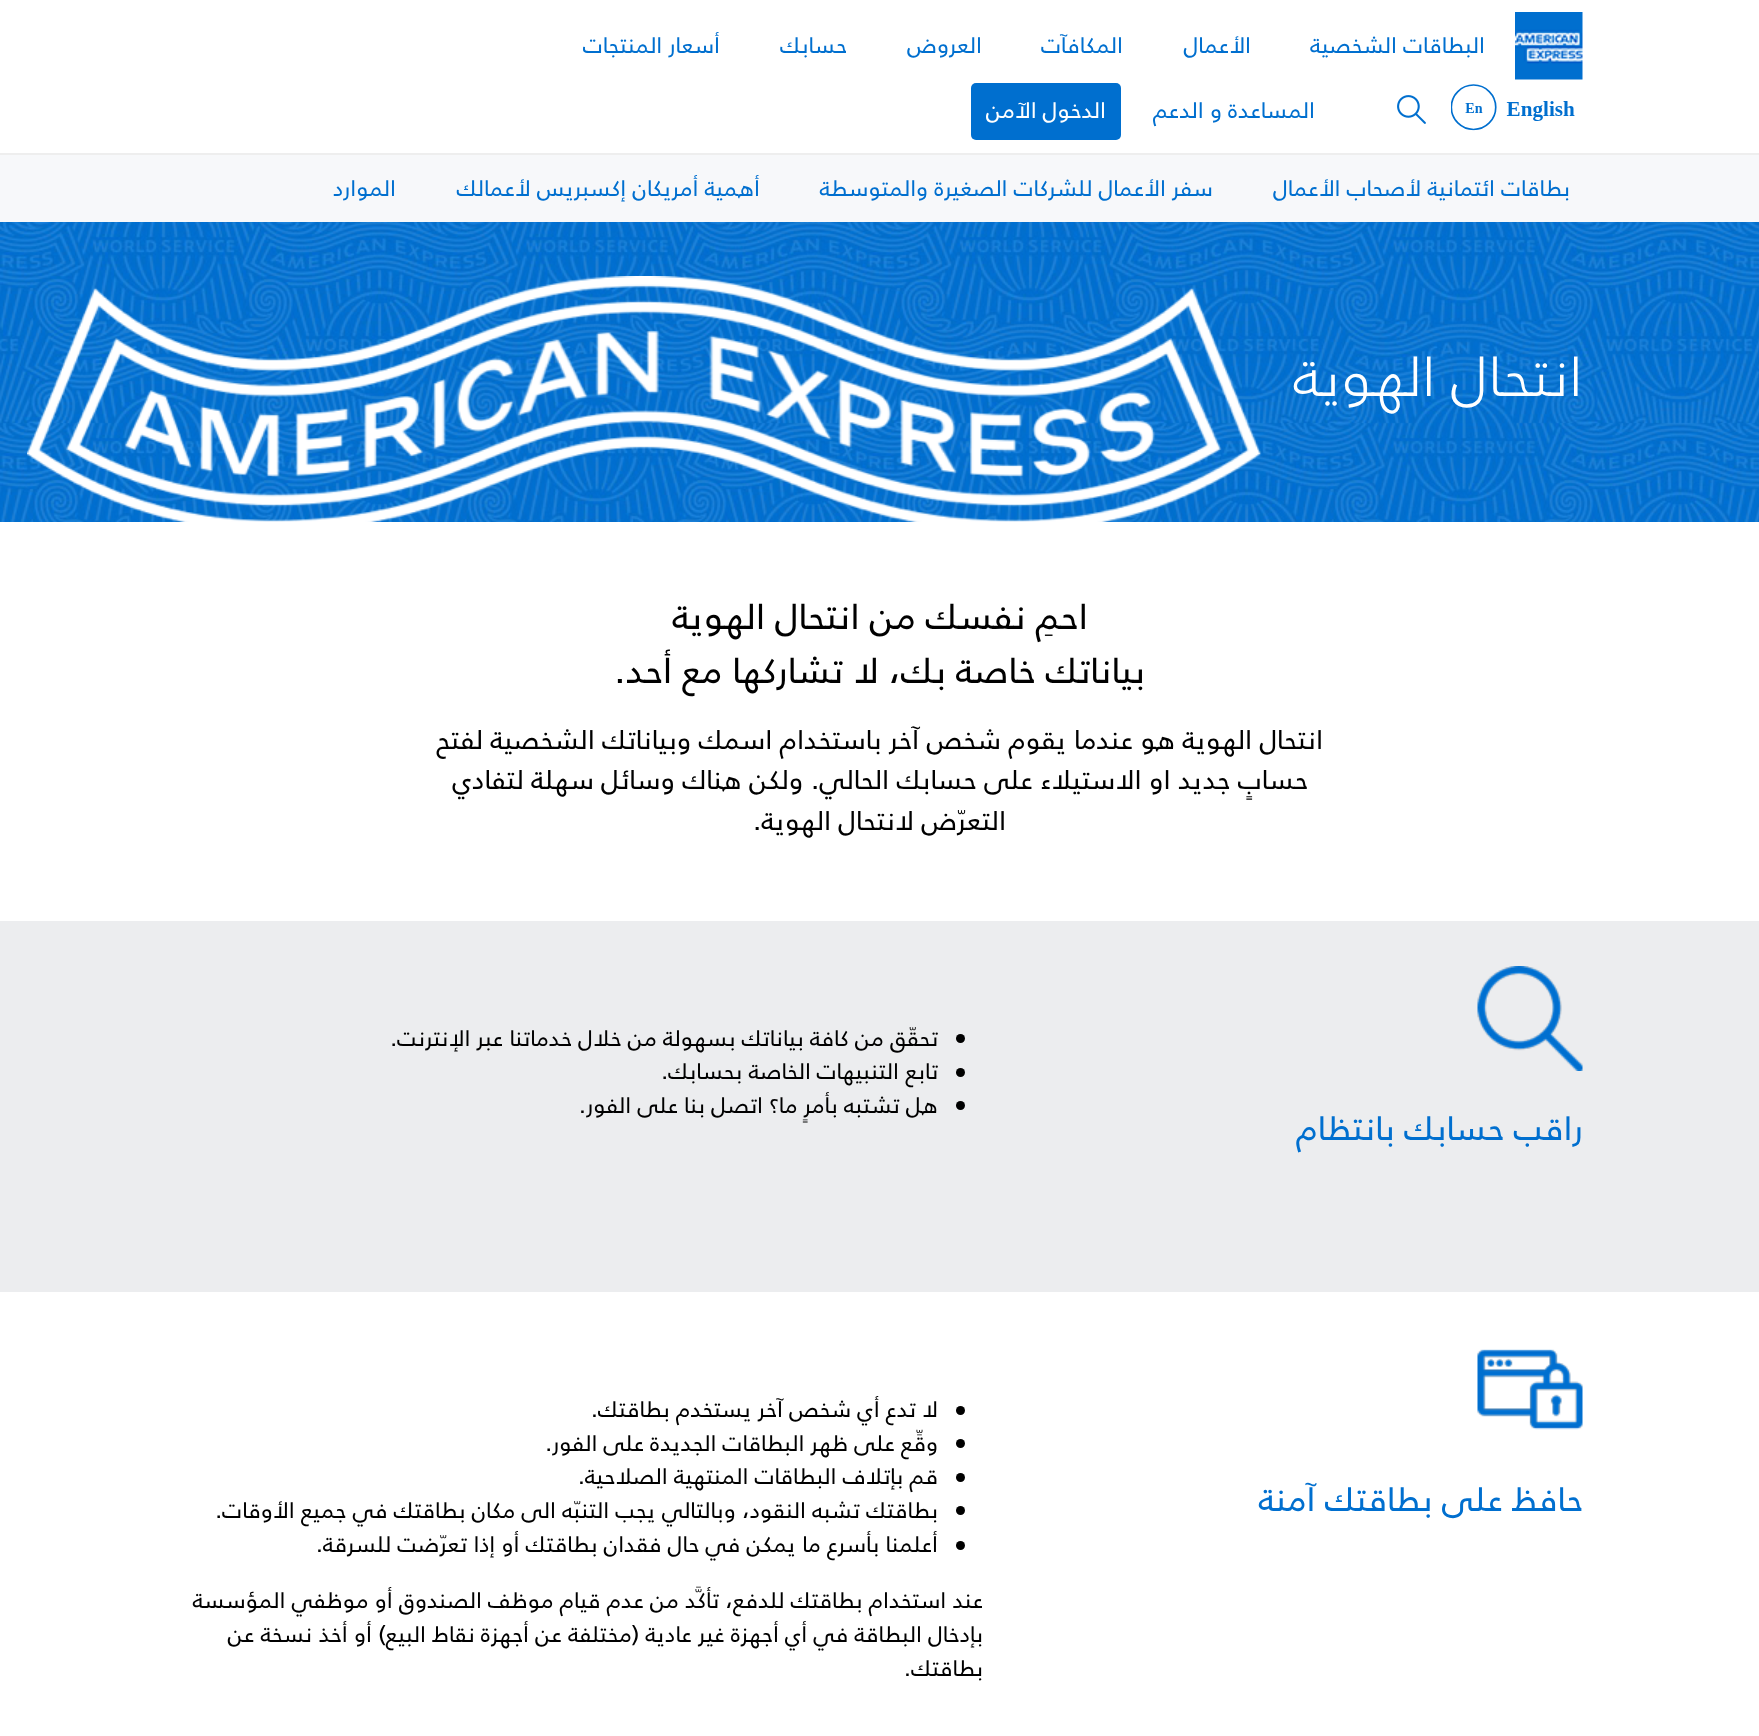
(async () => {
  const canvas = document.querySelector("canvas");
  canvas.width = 1759;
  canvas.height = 1736;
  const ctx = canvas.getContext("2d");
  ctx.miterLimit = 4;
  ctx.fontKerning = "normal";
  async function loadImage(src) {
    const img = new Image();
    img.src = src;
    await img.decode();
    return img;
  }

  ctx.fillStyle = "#ffffff";
  ctx.fillRect(0, 0, 1759, 1736);
  ctx.drawImage(await loadImage("img/1.png"), 1515, 12, 68, 68);
  ctx.drawImage(await loadImage("img/2.png"), 1451, 84, 124, 47);
  ctx.drawImage(await loadImage("img/3.png"), 1397, 95, 29, 29);
  ctx.fillStyle = "#006fcf";
  ctx.beginPath();
  ctx.roundRect(971, 83, 150, 57, 5);
  ctx.fill();
  ctx.fillStyle = "#f7f8fa";
  ctx.fillRect(0, 155, 1759, 67);
  ctx.fillStyle = "#eeeeee";
  ctx.fillRect(0, 153, 1759, 2);
  ctx.drawImage(await loadImage("img/4.png"), 0, 222, 1759, 300);
  ctx.drawImage(await loadImage("img/5.png"), 27, 276, 1235, 246);
  ctx.fillStyle = "#ecedef";
  ctx.fillRect(0, 921, 1759, 371);
  ctx.fillStyle = "#000000";
  ctx.beginPath();
  ctx.arc(960.5, 1038.5, 4.5, 0, Math.PI * 2);
  ctx.fill();
  ctx.beginPath();
  ctx.arc(960.5, 1072.5, 4.5, 0, Math.PI * 2);
  ctx.fill();
  ctx.beginPath();
  ctx.arc(960.5, 1105.5, 4.5, 0, Math.PI * 2);
  ctx.fill();
  ctx.drawImage(await loadImage("img/6.png"), 1477, 966, 106, 105);
  ctx.drawImage(await loadImage("img/7.png"), 1477, 1349, 106, 81);
  ctx.beginPath();
  ctx.arc(960.5, 1410.5, 4.5, 0, Math.PI * 2);
  ctx.fill();
  ctx.beginPath();
  ctx.arc(960.5, 1443.5, 4.5, 0, Math.PI * 2);
  ctx.fill();
  ctx.beginPath();
  ctx.arc(960.5, 1477.5, 4.5, 0, Math.PI * 2);
  ctx.fill();
  ctx.beginPath();
  ctx.arc(960.5, 1510.5, 4.5, 0, Math.PI * 2);
  ctx.fill();
  ctx.beginPath();
  ctx.arc(960.5, 1545.5, 4.5, 0, Math.PI * 2);
  ctx.fill();
  ctx.direction = "rtl";
  ctx.font = "22.5px Frutiger";
  ctx.fillStyle = "#006fcf";
  for (const [text, x, y] of [
    ["البطاقات الشخصية", 1485, 53],
    ["الأعمال", 1251, 53],
    ["المكافآت", 1123, 53],
    ["العروض", 982, 53],
    ["حسابك", 847, 53],
    ["أسعار المنتجات", 720, 53],
    ["المساعدة و الدعم", 1315, 118],
  ]) {
    ctx.fillText(text, x, y);
  }
  ctx.fillStyle = "#ffffff";
  ctx.fillText("الدخول الآمن", 1106, 118);
  ctx.fillStyle = "#006fcf";
  for (const [text, x, y] of [
    ["بطاقات ائتمانية لأصحاب الأعمال", 1570, 196],
    ["سفر الأعمال للشركات الصغيرة والمتوسطة", 1213, 196],
    ["أهمية أمريكان إكسبريس لأعمالك", 760, 196],
    ["الموارد", 396, 196],
  ]) {
    ctx.fillText(text, x, y);
  }
  ctx.font = "300 56.25px Frutiger";
  ctx.fillStyle = "#ffffff";
  ctx.fillText("انتحال الهوية", 1583, 396);
  ctx.font = "36px Frutiger";
  ctx.fillStyle = "#000000";
  ctx.fillText("احمِ نفسك من انتحال الهوية", 1088, 629);
  ctx.fillText("بياناتك خاصة بك، لا تشاركها مع أحد.", 1145, 683);
  ctx.font = "27px Frutiger";
  for (const [text, x, y] of [
    ["انتحال الهوية هو عندما يقوم شخص آخر باستخدام اسمك وبياناتك الشخصية لفتح", 1323, 749],
    ["حسابٍ جديد او الاستيلاء على حسابك الحالي. ولكن هناك وسائل سهلة لتفادي", 1308, 789],
    ["التعرّض لانتحال الهوية.", 1006, 830],
  ]) {
    ctx.fillText(text, x, y);
  }
  ctx.font = "22.5px Frutiger";
  ctx.fillText("تحقّق من كافة بياناتك بسهولة من خلال", 938, 1046);
  ctx.fillText("خدماتنا عبر الإنترنت", 572, 1046);
  ctx.direction = "ltr";
  ctx.fillText(".", 390, 1046);
  ctx.direction = "rtl";
  for (const [text, x, y] of [
    ["تابع", 938, 1079],
    ["التنبيهات", 899, 1079],
    ["الخاصة بحسابك.", 811, 1079],
    ["هل تشتبه بأمرٍ ما؟", 938, 1113],
    ["اتصل بنا", 763, 1113],
    ["على الفور.", 678, 1113],
  ]) {
    ctx.fillText(text, x, y);
  }
  ctx.font = "33.75px Frutiger";
  ctx.fillStyle = "#006fcf";
  ctx.fillText("راقب حسابك بانتظام", 1583, 1140);
  ctx.fillText("حافظ على بطاقتك آمنة", 1583, 1511);
  ctx.font = "22.5px Frutiger";
  ctx.fillStyle = "#000000";
  for (const [text, x, y] of [
    ["لا تدع أي شخص آخر يستخدم بطاقتك.", 938, 1417],
    ["وقِّع على ظهر البطاقات الجديدة على الفور.", 938, 1451],
    ["قم بإتلاف البطاقات المنتهية الصلاحية.", 938, 1484],
    ["بطاقتك تشبه النقود، وبالتالي يجب التنبّه الى مكان بطاقتك في جميع الأوقات.", 938, 1518],
    ["أعلمنا بأسرع ما يمكن في حال فقدان بطاقتك أو إذا تعرّضت للسرقة.", 938, 1552],
    ["عند استخدام بطاقتك للدفع، تأكَّد من عدم قيام موظف الصندوق أو موظفي المؤسسة", 983, 1608],
    ["بإدخال البطاقة في أي أجهزة غير عادية (مختلفة عن أجهزة نقاط البيع) أو أخذ نسخة عن", 983, 1642],
    ["بطاقتك.", 983, 1676],
  ]) {
    ctx.fillText(text, x, y);
  }
})();
